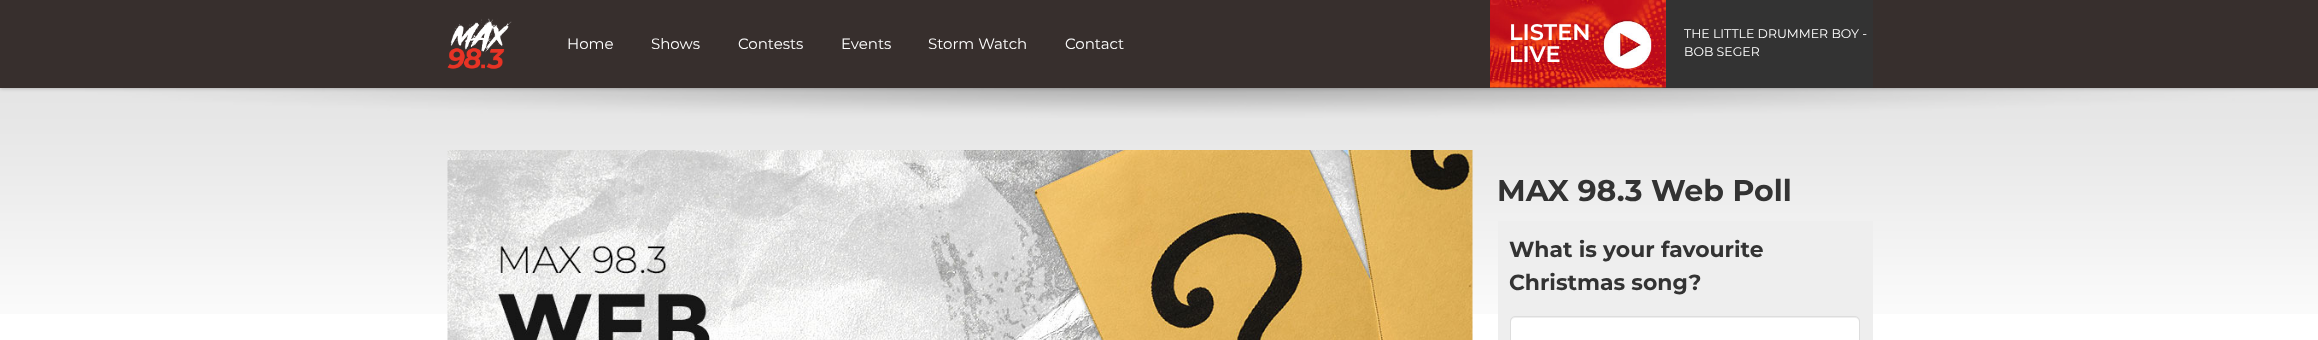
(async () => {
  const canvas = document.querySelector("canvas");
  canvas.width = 2318;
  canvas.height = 340;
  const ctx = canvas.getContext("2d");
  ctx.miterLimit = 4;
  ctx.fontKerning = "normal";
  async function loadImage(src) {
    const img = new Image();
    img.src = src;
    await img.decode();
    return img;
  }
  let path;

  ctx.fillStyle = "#ffffff";
  ctx.fillRect(0, 0, 2318, 340);
  ctx.drawImage(await loadImage("img/3.png"), 0, 88, 2318, 226);
  ctx.fillStyle = "rgba(0, 0, 0, 0.3)";
  ctx.filter = "blur(2px)";
  ctx.beginPath();
  ctx.rect(0, 0, 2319, 88);
  ctx.fill();
  ctx.filter = "none";
  ctx.fillStyle = "#372f2d";
  ctx.fillRect(0, 0, 2318, 88);
  ctx.drawImage(await loadImage("img/1.png"), 447, 18, 65, 51);
  ctx.fillStyle = "#333333";
  ctx.fillRect(1490, 0, 383, 88);
  ctx.drawImage(await loadImage("img/2.png"), 1490, 0, 176, 88);
  ctx.drawImage(await loadImage("img/4.png"), 447, 150, 1026, 190);
  ctx.fillStyle = "#eeeeee";
  ctx.fillRect(1498, 221, 375, 119);
  ctx.beginPath();
  ctx.roundRect(1510.5, 316.5, 349, 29, 4.5);
  ctx.strokeStyle = "#dddddd";
  ctx.stroke();
  ctx.fillStyle = "#ffffff";
  path = new Path2D("M1515 318H1855C1857 318 1859 320 1859 322V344H1511V322C1511 320 1513 318 1515 318Z");
  ctx.fill(path);
  ctx.font = "15px Montserrat";
  for (const [text, x, y] of [
    ["Home", 567, 49],
    ["Shows", 651, 49],
    ["Contests", 738, 49],
    ["Events", 841, 49],
    ["Storm Watch", 928, 49],
    ["Contact", 1065, 49],
  ]) {
    ctx.fillText(text, x, y);
  }
  ctx.font = "600 22.5px Montserrat";
  ctx.fillText("LISTEN", 1509, 40);
  ctx.fillText("LIVE", 1509, 62);
  ctx.font = "12.5px Montserrat";
  ctx.fillText("THE LITTLE DRUMMER BOY -", 1684, 38);
  ctx.fillText("BOB SEGER", 1684, 56);
  ctx.font = "bold 30px Montserrat";
  ctx.fillStyle = "#333333";
  ctx.fillText("MAX 98.3 Web Poll", 1497, 201);
  ctx.font = "bold 21.9px Montserrat";
  ctx.fillText("What is your favourite", 1509, 257);
  ctx.fillText("Christmas song?", 1509, 290);
})();
